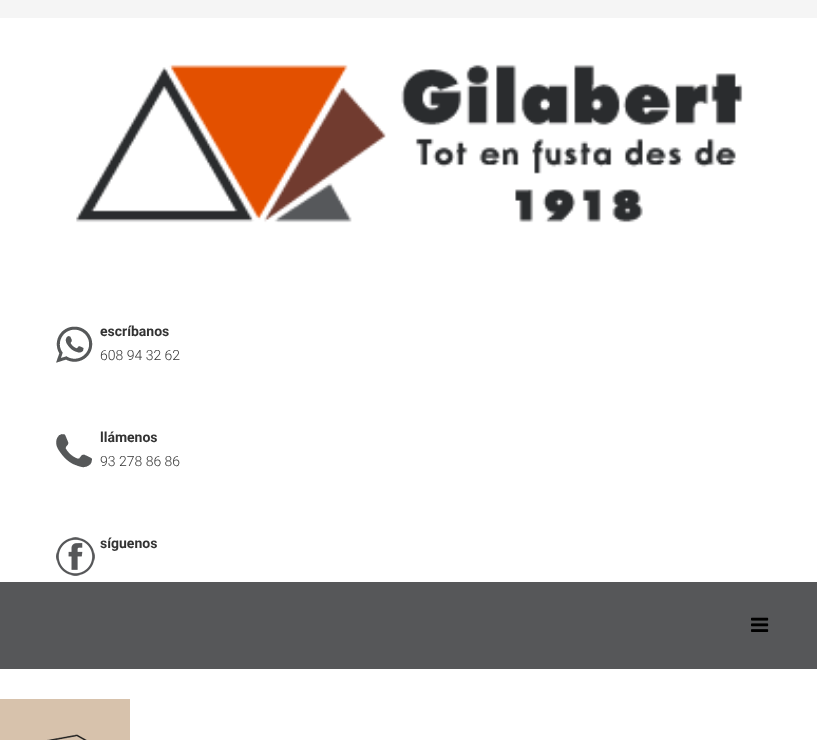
(async () => {
  const canvas = document.querySelector("canvas");
  canvas.width = 817;
  canvas.height = 740;
  const ctx = canvas.getContext("2d");
  ctx.miterLimit = 4;
  ctx.fontKerning = "normal";
  async function loadImage(src) {
    const img = new Image();
    img.src = src;
    await img.decode();
    return img;
  }

  ctx.fillStyle = "#ffffff";
  ctx.fillRect(0, 0, 817, 740);
  ctx.fillStyle = "#f5f5f5";
  ctx.fillRect(0, 0, 817, 18);
  ctx.drawImage(await loadImage("img/1.png"), 76, 64, 667, 159);
  ctx.drawImage(await loadImage("img/2.png"), 56, 326, 37, 37);
  ctx.drawImage(await loadImage("img/3.png"), 56, 434, 36, 34);
  ctx.drawImage(await loadImage("img/4.png"), 56, 537, 39, 39);
  ctx.fillStyle = "#565759";
  ctx.fillRect(0, 582, 817, 87);
  ctx.drawImage(await loadImage("img/5.png"), 751, 617, 18, 15);
  ctx.fillStyle = "#d7c2ac";
  ctx.fillRect(0, 699, 130, 41);
  ctx.drawImage(await loadImage("img/6.png"), 47, 734, 40, 6);
  ctx.font = "bold 14px Roboto";
  ctx.fillStyle = "#333333";
  ctx.fillText("escríbanos", 100, 336);
  ctx.font = "300 14px Roboto";
  ctx.fillText("608 94 32 62", 100, 360);
  ctx.font = "bold 14px Roboto";
  ctx.fillText("llámenos", 100, 442);
  ctx.font = "300 14px Roboto";
  ctx.fillText("93 278 86 86", 100, 466);
  ctx.font = "bold 14px Roboto";
  ctx.fillText("síguenos", 100, 548);
})();
